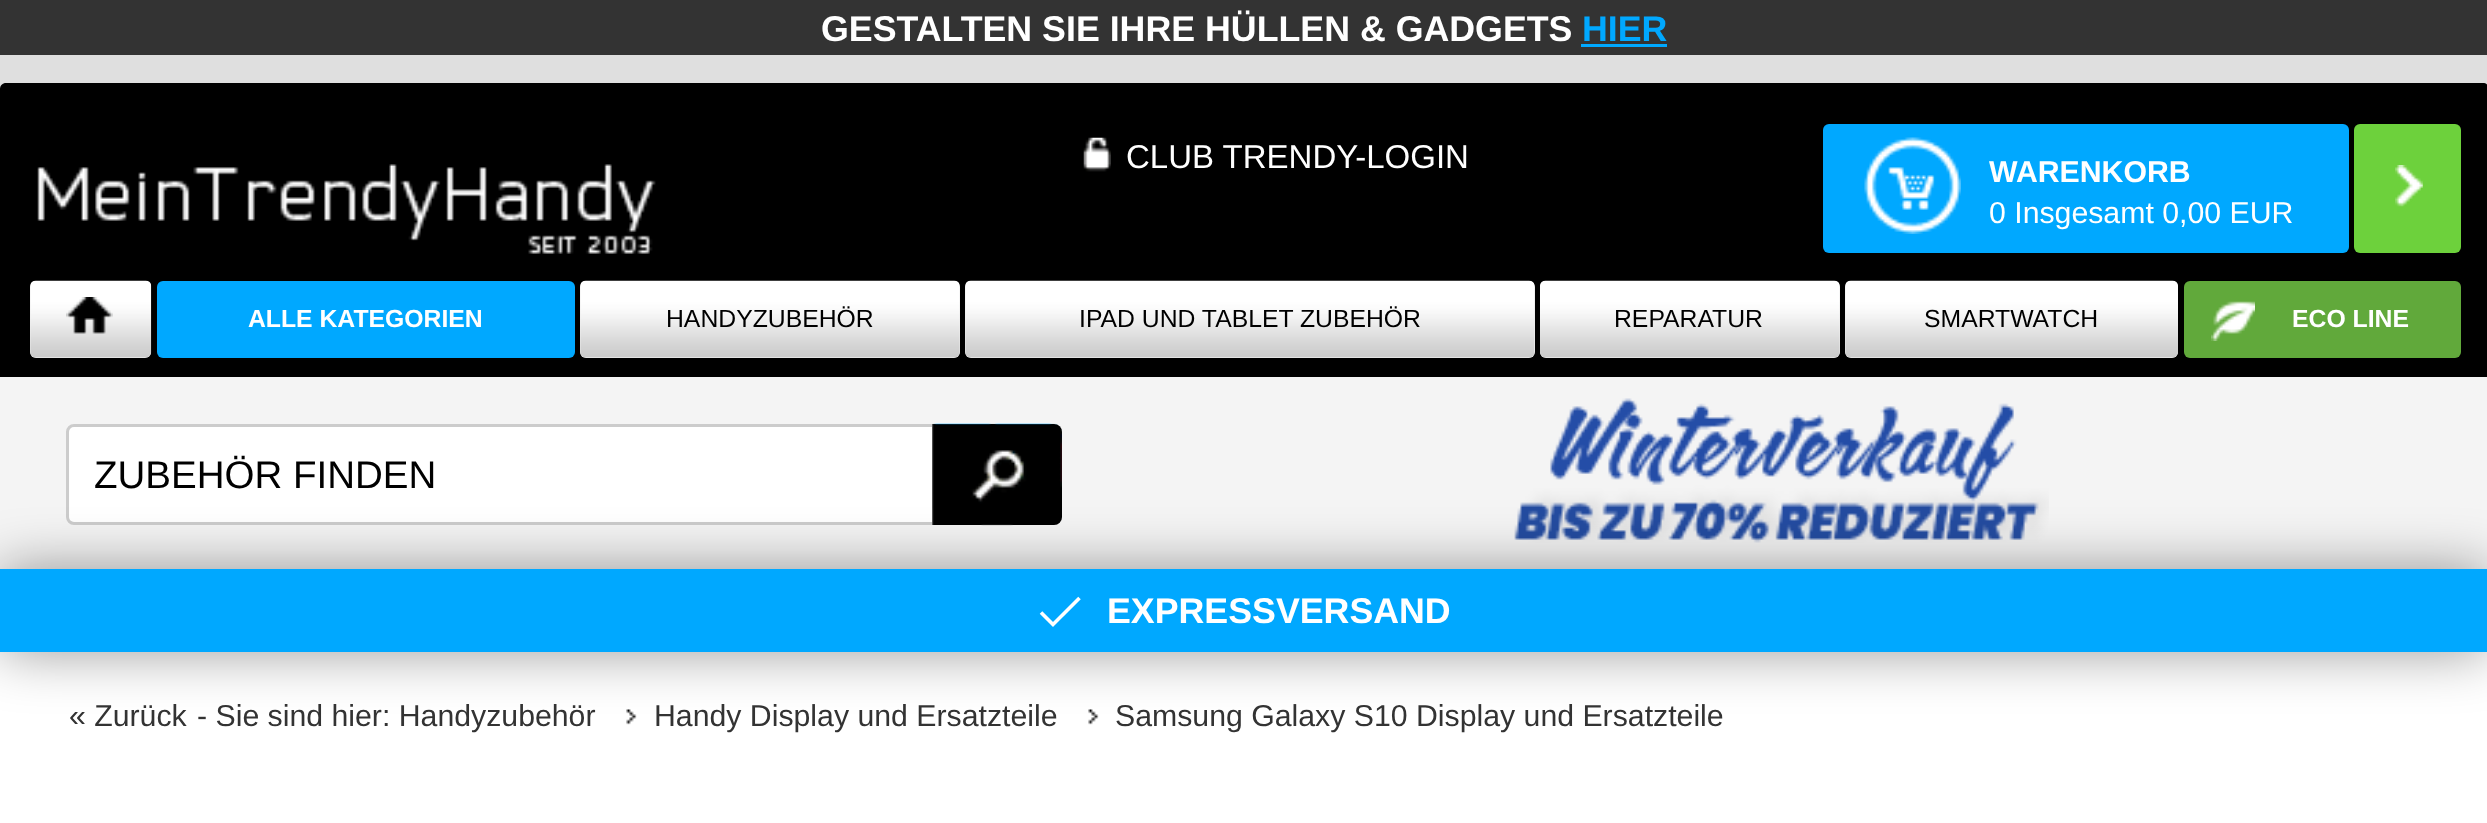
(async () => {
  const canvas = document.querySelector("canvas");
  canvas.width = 2487;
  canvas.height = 823;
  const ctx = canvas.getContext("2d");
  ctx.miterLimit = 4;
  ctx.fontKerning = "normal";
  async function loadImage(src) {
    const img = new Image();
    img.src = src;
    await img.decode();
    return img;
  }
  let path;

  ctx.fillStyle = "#dfdfdf";
  ctx.fillRect(0, 0, 2487, 823);
  ctx.fillStyle = "#333333";
  ctx.fillRect(0, 0, 2487, 55);
  ctx.fillStyle = "#00a8ff";
  ctx.fillRect(1581, 44, 86, 3);
  ctx.fillStyle = "#000000";
  path = new Path2D("M6 83H2483C2486.5 83 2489 85.5 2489 89V253H0V89C0 85.5 2.5 83 6 83Z");
  ctx.fill(path);
  ctx.drawImage(await loadImage("img/1.png"), 1083, 137, 28, 35);
  ctx.fillRect(0, 253, 2487, 124);
  ctx.drawImage(await loadImage("img/2.png"), 37, 164, 619, 90);
  ctx.fillStyle = "#00a8ff";
  ctx.beginPath();
  ctx.roundRect(1823, 124, 526, 129, 6);
  ctx.fill();
  ctx.drawImage(await loadImage("img/3.png"), 1864, 137, 97, 97);
  ctx.fillStyle = "#6dd13c";
  ctx.beginPath();
  ctx.roundRect(2354, 124, 107, 129, 6);
  ctx.fill();
  ctx.drawImage(await loadImage("img/4.png"), 2395, 165, 28, 42);
  ctx.fillStyle = "#ededed";
  ctx.beginPath();
  ctx.roundRect(30, 281, 121, 77, 6);
  ctx.fill();
  ctx.drawImage(await loadImage("img/5.png"), 30, 280, 122, 78);
  ctx.drawImage(await loadImage("img/6.png"), 66, 297, 47, 37);
  ctx.fillStyle = "#00a8ff";
  ctx.beginPath();
  ctx.roundRect(157, 281, 418, 77, 6);
  ctx.fill();
  ctx.fillStyle = "#ededed";
  ctx.beginPath();
  ctx.roundRect(580, 281, 380, 77, 6);
  ctx.fill();
  ctx.drawImage(await loadImage("img/7.png"), 580, 280, 380, 78);
  ctx.beginPath();
  ctx.roundRect(965, 281, 570, 77, 6);
  ctx.fill();
  ctx.drawImage(await loadImage("img/8.png"), 965, 280, 570, 78);
  ctx.beginPath();
  ctx.roundRect(1540, 281, 300, 77, 6);
  ctx.fill();
  ctx.drawImage(await loadImage("img/9.png"), 1540, 280, 300, 78);
  ctx.beginPath();
  ctx.roundRect(1845, 281, 333, 77, 6);
  ctx.fill();
  ctx.drawImage(await loadImage("img/10.png"), 1845, 280, 333, 78);
  ctx.fillStyle = "#61a93b";
  ctx.beginPath();
  ctx.roundRect(2184, 281, 277, 77, 6);
  ctx.fill();
  ctx.drawImage(await loadImage("img/11.png"), 2211, 301, 44, 40);
  ctx.fillStyle = "#f4f4f4";
  ctx.fillRect(0, 377, 2487, 192);
  ctx.fillStyle = "#ffffff";
  ctx.beginPath();
  ctx.roundRect(67.5, 425.5, 993, 98, 6.5);
  ctx.fill();
  ctx.strokeStyle = "#cccccc";
  ctx.lineWidth = 3;
  ctx.stroke();
  ctx.drawImage(await loadImage("img/13.png"), 1514, 398, 535, 145);
  ctx.fillRect(0, 652, 2487, 171);
  ctx.fillStyle = "rgba(0, 0, 0, 0.4)";
  ctx.filter = "blur(27.5px)";
  ctx.beginPath();
  ctx.rect(0, 569, 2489, 83);
  ctx.fill();
  ctx.filter = "none";
  ctx.fillStyle = "#000000";
  ctx.beginPath();
  ctx.roundRect(932, 424, 130, 101, [0, 8, 8, 0]);
  ctx.fill();
  ctx.drawImage(await loadImage("img/12.png"), 932, 423, 130, 103);
  ctx.fillStyle = "#00a8ff";
  ctx.fillRect(0, 569, 2487, 83);
  path = new Path2D("M1079.5 598L1053 624.5L1041 612.5");
  ctx.strokeStyle = "#ffffff";
  ctx.lineWidth = 3.6;
  ctx.stroke(path);
  ctx.drawImage(await loadImage("img/14.png"), 626, 709, 11, 16);
  ctx.drawImage(await loadImage("img/15.png"), 1088, 709, 11, 16);
  ctx.font = "bold 35.75px Liberation Sans";
  ctx.fillStyle = "#ffffff";
  ctx.fillText("GESTALTEN SIE IHRE HÜLLEN & GADGETS", 821, 41);
  ctx.fillStyle = "#00a8ff";
  ctx.fillText("HIER", 1582, 41);
  ctx.font = "33px Liberation Sans";
  ctx.fillStyle = "#ffffff";
  ctx.fillText("CLUB TRENDY-LOGIN", 1126, 168);
  ctx.font = "bold 30.25px Liberation Sans";
  ctx.fillText("WARENKORB", 1989, 182);
  ctx.font = "30.25px Liberation Sans";
  ctx.fillText("0 Insgesamt 0,00 EUR", 1989, 223);
  ctx.font = "bold 24.75px Liberation Sans";
  ctx.fillText("ALLE KATEGORIEN", 248, 327);
  ctx.font = "24.75px Liberation Sans";
  ctx.fillStyle = "#000000";
  for (const [text, x, y] of [
    ["HANDYZUBEHÖR", 666, 327],
    ["IPAD UND TABLET ZUBEHÖR", 1079, 327],
    ["REPARATUR", 1614, 327],
    ["SMARTWATCH", 1924, 327],
  ]) {
    ctx.fillText(text, x, y);
  }
  ctx.font = "bold 24.75px Liberation Sans";
  ctx.fillStyle = "#ffffff";
  ctx.fillText("ECO LINE", 2292, 327);
  ctx.font = "38.5px Liberation Sans";
  ctx.fillStyle = "#000000";
  ctx.fillText("ZUBEHÖR FINDEN", 94, 488);
  ctx.font = "bold 35.75px Liberation Sans";
  ctx.fillStyle = "#ffffff";
  ctx.fillText("EXPRESSVERSAND", 1107, 623);
  ctx.font = "30.25px Liberation Sans";
  ctx.fillStyle = "#333333";
  for (const [text, x, y] of [
    ["« Zurück", 69, 726],
    ["- Sie sind hier: Handyzubehör", 197, 726],
    ["Handy Display und Ersatzteile", 654, 726],
    ["Samsung Galaxy S10 Display und Ersatzteile", 1115, 726],
  ]) {
    ctx.fillText(text, x, y);
  }
})();
